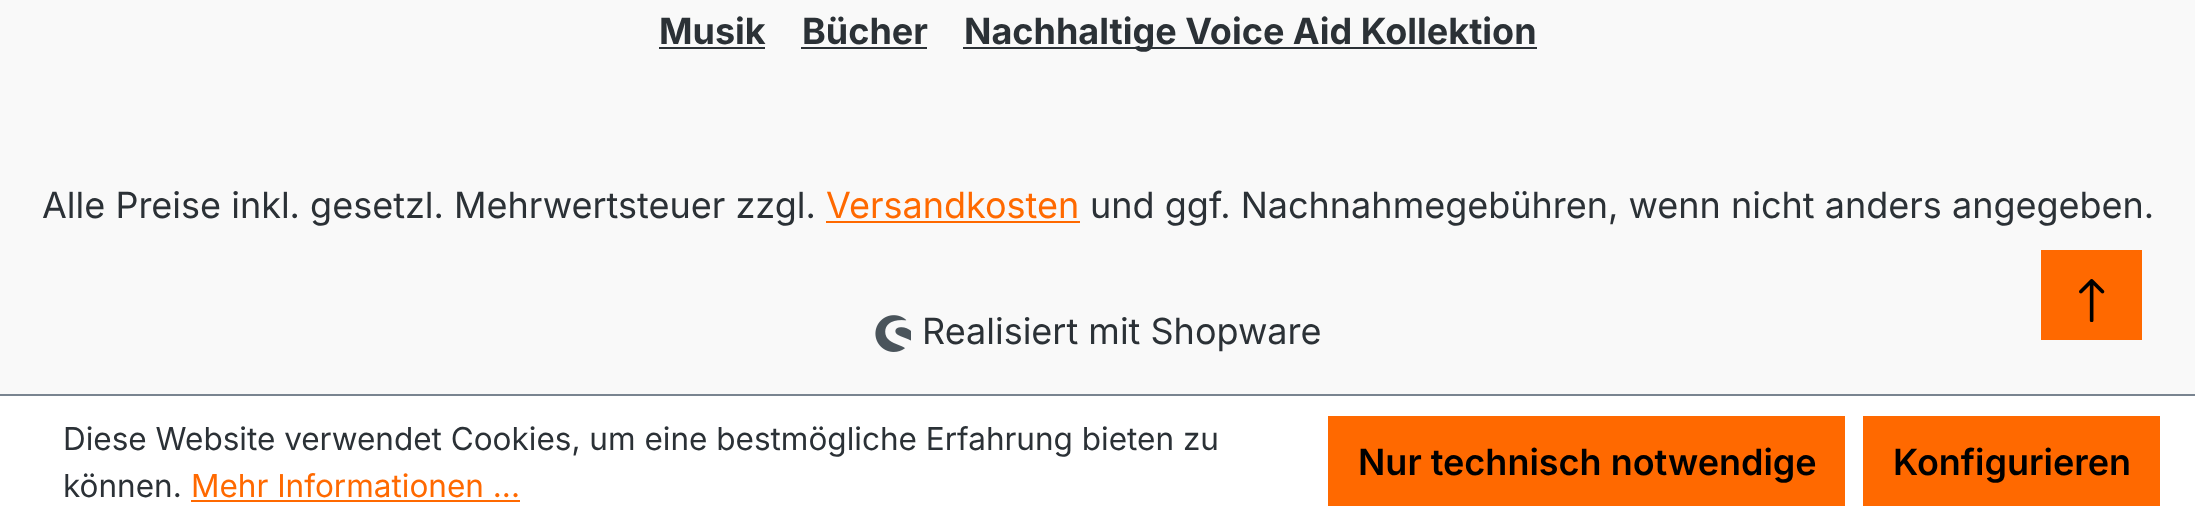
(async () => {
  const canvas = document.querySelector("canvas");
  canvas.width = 2195;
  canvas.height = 526;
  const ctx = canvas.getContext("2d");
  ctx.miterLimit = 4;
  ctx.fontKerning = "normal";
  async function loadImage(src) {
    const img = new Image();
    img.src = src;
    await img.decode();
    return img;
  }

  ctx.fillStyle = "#ffffff";
  ctx.fillRect(0, 0, 2195, 526);
  for (const [x, y, w, h, color] of [
    [0, 0, 2195, 394, "#f9f9f9"],
    [659, 47, 106, 2, "#2b3136"],
    [801, 47, 126, 2, "#2b3136"],
    [963, 47, 574, 2, "#2b3136"],
    [826, 221, 254, 2, "#ff6900"],
  ]) {
    ctx.fillStyle = color;
    ctx.fillRect(x, y, w, h);
  }
  ctx.drawImage(await loadImage("img/1.png"), 875, 315, 36, 37);
  ctx.fillRect(2041, 250, 101, 90);
  ctx.drawImage(await loadImage("img/2.png"), 2079, 279, 26, 43);
  for (const [x, y, w, h, color] of [
    [0, 394, 2195, 2, "#798490"],
    [191, 500, 329, 2, "#ff6900"],
    [1328, 416, 517, 90, "#ff6900"],
    [1863, 416, 297, 90, "#ff6900"],
  ]) {
    ctx.fillStyle = color;
    ctx.fillRect(x, y, w, h);
  }
  ctx.font = "bold 36px Inter";
  ctx.fillStyle = "#2b3136";
  for (const [text, x, y] of [
    ["Musik", 659, 44],
    ["Bücher", 802, 44],
    ["Nachhaltige Voice Aid Kollektion", 964, 44],
  ]) {
    ctx.fillText(text, x, y);
  }
  ctx.font = "36px Inter";
  ctx.fillText("Alle Preise inkl. gesetzl. Mehrwertsteuer zzgl.", 42, 218);
  ctx.fillStyle = "#ff6900";
  ctx.fillText("Versandkosten", 826, 218);
  ctx.fillStyle = "#2b3136";
  ctx.fillText("und ggf. Nachnahmegebühren, wenn nicht anders angegeben.", 1090, 218);
  ctx.fillText("Realisiert mit Shopware", 922, 344);
  ctx.font = "31.5px Inter";
  ctx.fillText("Diese Website verwendet Cookies, um eine bestmögliche Erfahrung bieten zu", 63, 450);
  ctx.fillText("können.", 63, 497);
  ctx.fillStyle = "#ff6900";
  ctx.fillText("Mehr Informationen ...", 191, 497);
  ctx.font = "600 36px Inter";
  ctx.fillStyle = "#000000";
  ctx.fillText("Nur technisch notwendige", 1358, 475);
  ctx.fillText("Konfigurieren", 1893, 475);
})();
